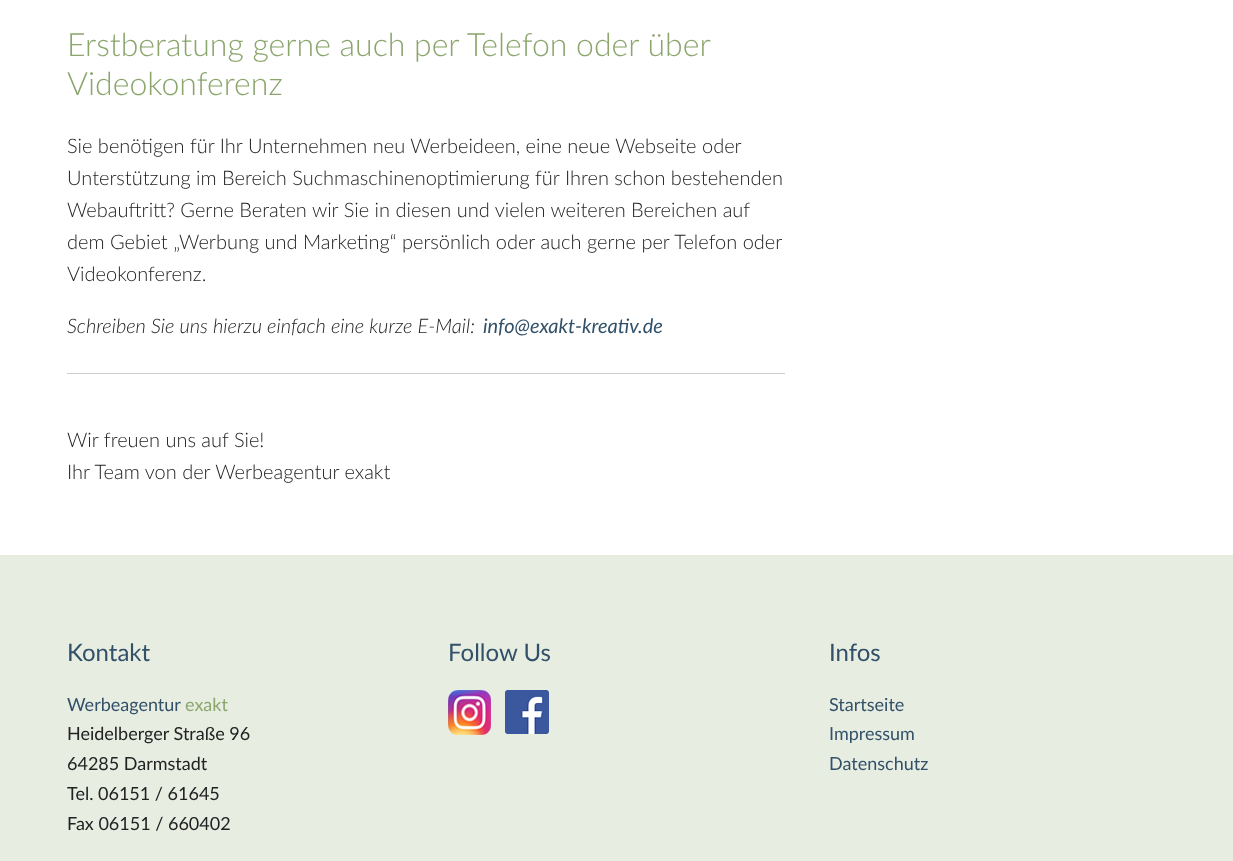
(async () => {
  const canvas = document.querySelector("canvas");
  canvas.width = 1233;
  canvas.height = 861;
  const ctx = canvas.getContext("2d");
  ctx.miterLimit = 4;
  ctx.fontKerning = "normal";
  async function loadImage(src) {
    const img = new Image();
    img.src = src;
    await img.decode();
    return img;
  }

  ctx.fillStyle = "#ffffff";
  ctx.fillRect(0, 0, 1233, 861);
  ctx.fillStyle = "#cccccc";
  ctx.fillRect(67, 373, 718, 1);
  ctx.fillStyle = "#e8ede2";
  ctx.fillRect(0, 555, 1233, 306);
  ctx.drawImage(await loadImage("img/1.png"), 448, 690, 43, 45);
  ctx.drawImage(await loadImage("img/2.png"), 505, 690, 44, 44);
  ctx.font = "300 32px Lato";
  ctx.fillStyle = "#8ba56d";
  ctx.fillText("Erstberatung gerne auch per Telefon oder über", 67, 56);
  ctx.fillText("Videokonferenz", 67, 95);
  ctx.font = "300 20px Lato";
  ctx.fillStyle = "#222222";
  for (const [text, x, y] of [
    ["Sie benötigen für Ihr Unternehmen neu Werbeideen, eine neue Webseite oder", 67, 153],
    ["Unterstützung im Bereich Suchmaschinenoptimierung für Ihren schon bestehenden", 67, 185],
    ["Webauftritt? Gerne Beraten wir Sie in diesen und vielen weiteren Bereichen auf", 67, 217],
    ["dem Gebiet „Werbung und Marketing“ persönlich oder auch gerne per Telefon oder", 67, 249],
    ["Videokonferenz.", 67, 281],
  ]) {
    ctx.fillText(text, x, y);
  }
  ctx.font = "italic 300 20px Lato";
  ctx.fillText("Schreiben Sie uns hierzu einfach eine kurze E-Mail:", 67, 333);
  ctx.font = "italic 20px Lato";
  ctx.fillStyle = "#325168";
  ctx.fillText("info@exakt-kreativ.de", 483, 333);
  ctx.font = "300 20px Lato";
  ctx.fillStyle = "#222222";
  ctx.fillText("Wir freuen uns auf Sie!", 67, 447);
  ctx.fillText("Ihr Team von der Werbeagentur exakt", 67, 479);
  ctx.font = "24px Lato";
  ctx.fillStyle = "#325168";
  ctx.fillText("Kontakt", 67, 661);
  ctx.font = "18px Lato";
  ctx.fillText("Werbeagentur", 67, 711);
  ctx.fillStyle = "#8ba56d";
  ctx.fillText("exakt", 185, 711);
  ctx.fillStyle = "#222222";
  for (const [text, x, y] of [
    ["Heidelberger Straße 96", 67, 740],
    ["64285 Darmstadt", 67, 770],
    ["Tel. 06151 / 61645", 67, 800],
    ["Fax 06151 / 660402", 67, 830],
  ]) {
    ctx.fillText(text, x, y);
  }
  ctx.font = "24px Lato";
  ctx.fillStyle = "#325168";
  ctx.fillText("Follow Us", 448, 661);
  ctx.fillText("Infos", 829, 661);
  ctx.font = "18px Lato";
  for (const [text, x, y] of [
    ["Startseite", 829, 711],
    ["Impressum", 829, 740],
    ["Datenschutz", 829, 770],
  ]) {
    ctx.fillText(text, x, y);
  }
})();
